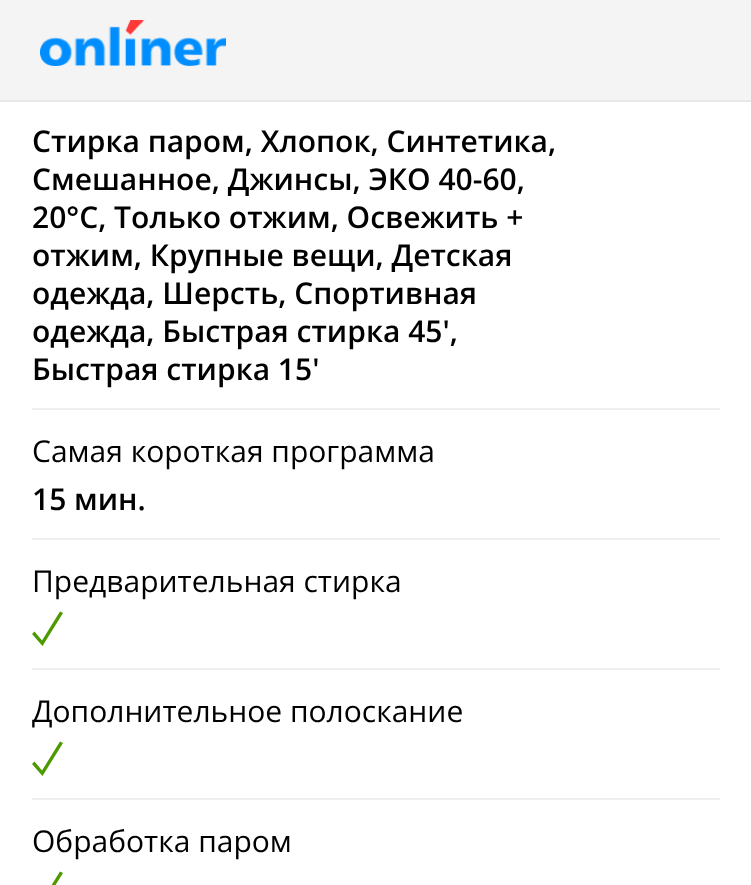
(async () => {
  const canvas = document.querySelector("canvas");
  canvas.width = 751;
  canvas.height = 885;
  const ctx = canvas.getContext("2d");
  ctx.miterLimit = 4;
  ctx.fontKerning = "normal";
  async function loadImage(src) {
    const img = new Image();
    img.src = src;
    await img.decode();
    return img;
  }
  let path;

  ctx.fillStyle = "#ffffff";
  ctx.fillRect(0, 0, 751, 885);
  ctx.fillStyle = "#f4f4f4";
  ctx.fillRect(0, 0, 751, 100);
  ctx.fillStyle = "#e8e8e8";
  ctx.fillRect(0, 100, 751, 2);
  ctx.drawImage(await loadImage("img/1.png"), 40, 20, 186, 46);
  for (const [x, y, w, h, color] of [
    [32, 408, 688, 2, "#eeeeee"],
    [32, 538, 688, 2, "#eeeeee"],
    [32, 668, 688, 2, "#eeeeee"],
  ]) {
    ctx.fillStyle = color;
    ctx.fillRect(x, y, w, h);
  }
  ctx.fillStyle = "#4d9900";
  path = new Path2D("M32 634L34.5 631.5L42 640.5L60 611.5L63 613L42.5 646Z");
  ctx.fill(path);
  ctx.fillStyle = "#eeeeee";
  ctx.fillRect(32, 798, 688, 2);
  ctx.fillStyle = "#4d9900";
  path = new Path2D("M32 764L34.5 761.5L42 770.5L60 741.5L63 743L42.5 776Z");
  ctx.fill(path);
  path = new Path2D("M32 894L34.5 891.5L42 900.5L60 871.5L63 873L42.5 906Z");
  ctx.fill(path);
  ctx.font = "600 30px Open Sans";
  ctx.fillStyle = "#000000";
  for (const [text, x, y] of [
    ["Стирка паром, Хлопок, Синтетика,", 32, 152],
    ["Смешанное, Джинсы, ЭКО 40-60,", 32, 190],
    ["20°C, Только отжим, Освежить +", 32, 228],
    ["отжим, Крупные вещи, Детская", 32, 266],
    ["одежда, Шерсть, Спортивная", 32, 304],
    ["одежда, Быстрая стирка 45',", 32, 342],
    ["Быстрая стирка 15'", 32, 380],
  ]) {
    ctx.fillText(text, x, y);
  }
  ctx.font = "30px Open Sans";
  ctx.fillText("Самая короткая программа", 32, 462);
  ctx.font = "600 30px Open Sans";
  ctx.fillText("15 мин.", 32, 510);
  ctx.font = "30px Open Sans";
  for (const [text, x, y] of [
    ["Предварительная стирка", 32, 592],
    ["Дополнительное полоскание", 32, 722],
    ["Обработка паром", 32, 852],
  ]) {
    ctx.fillText(text, x, y);
  }
})();
